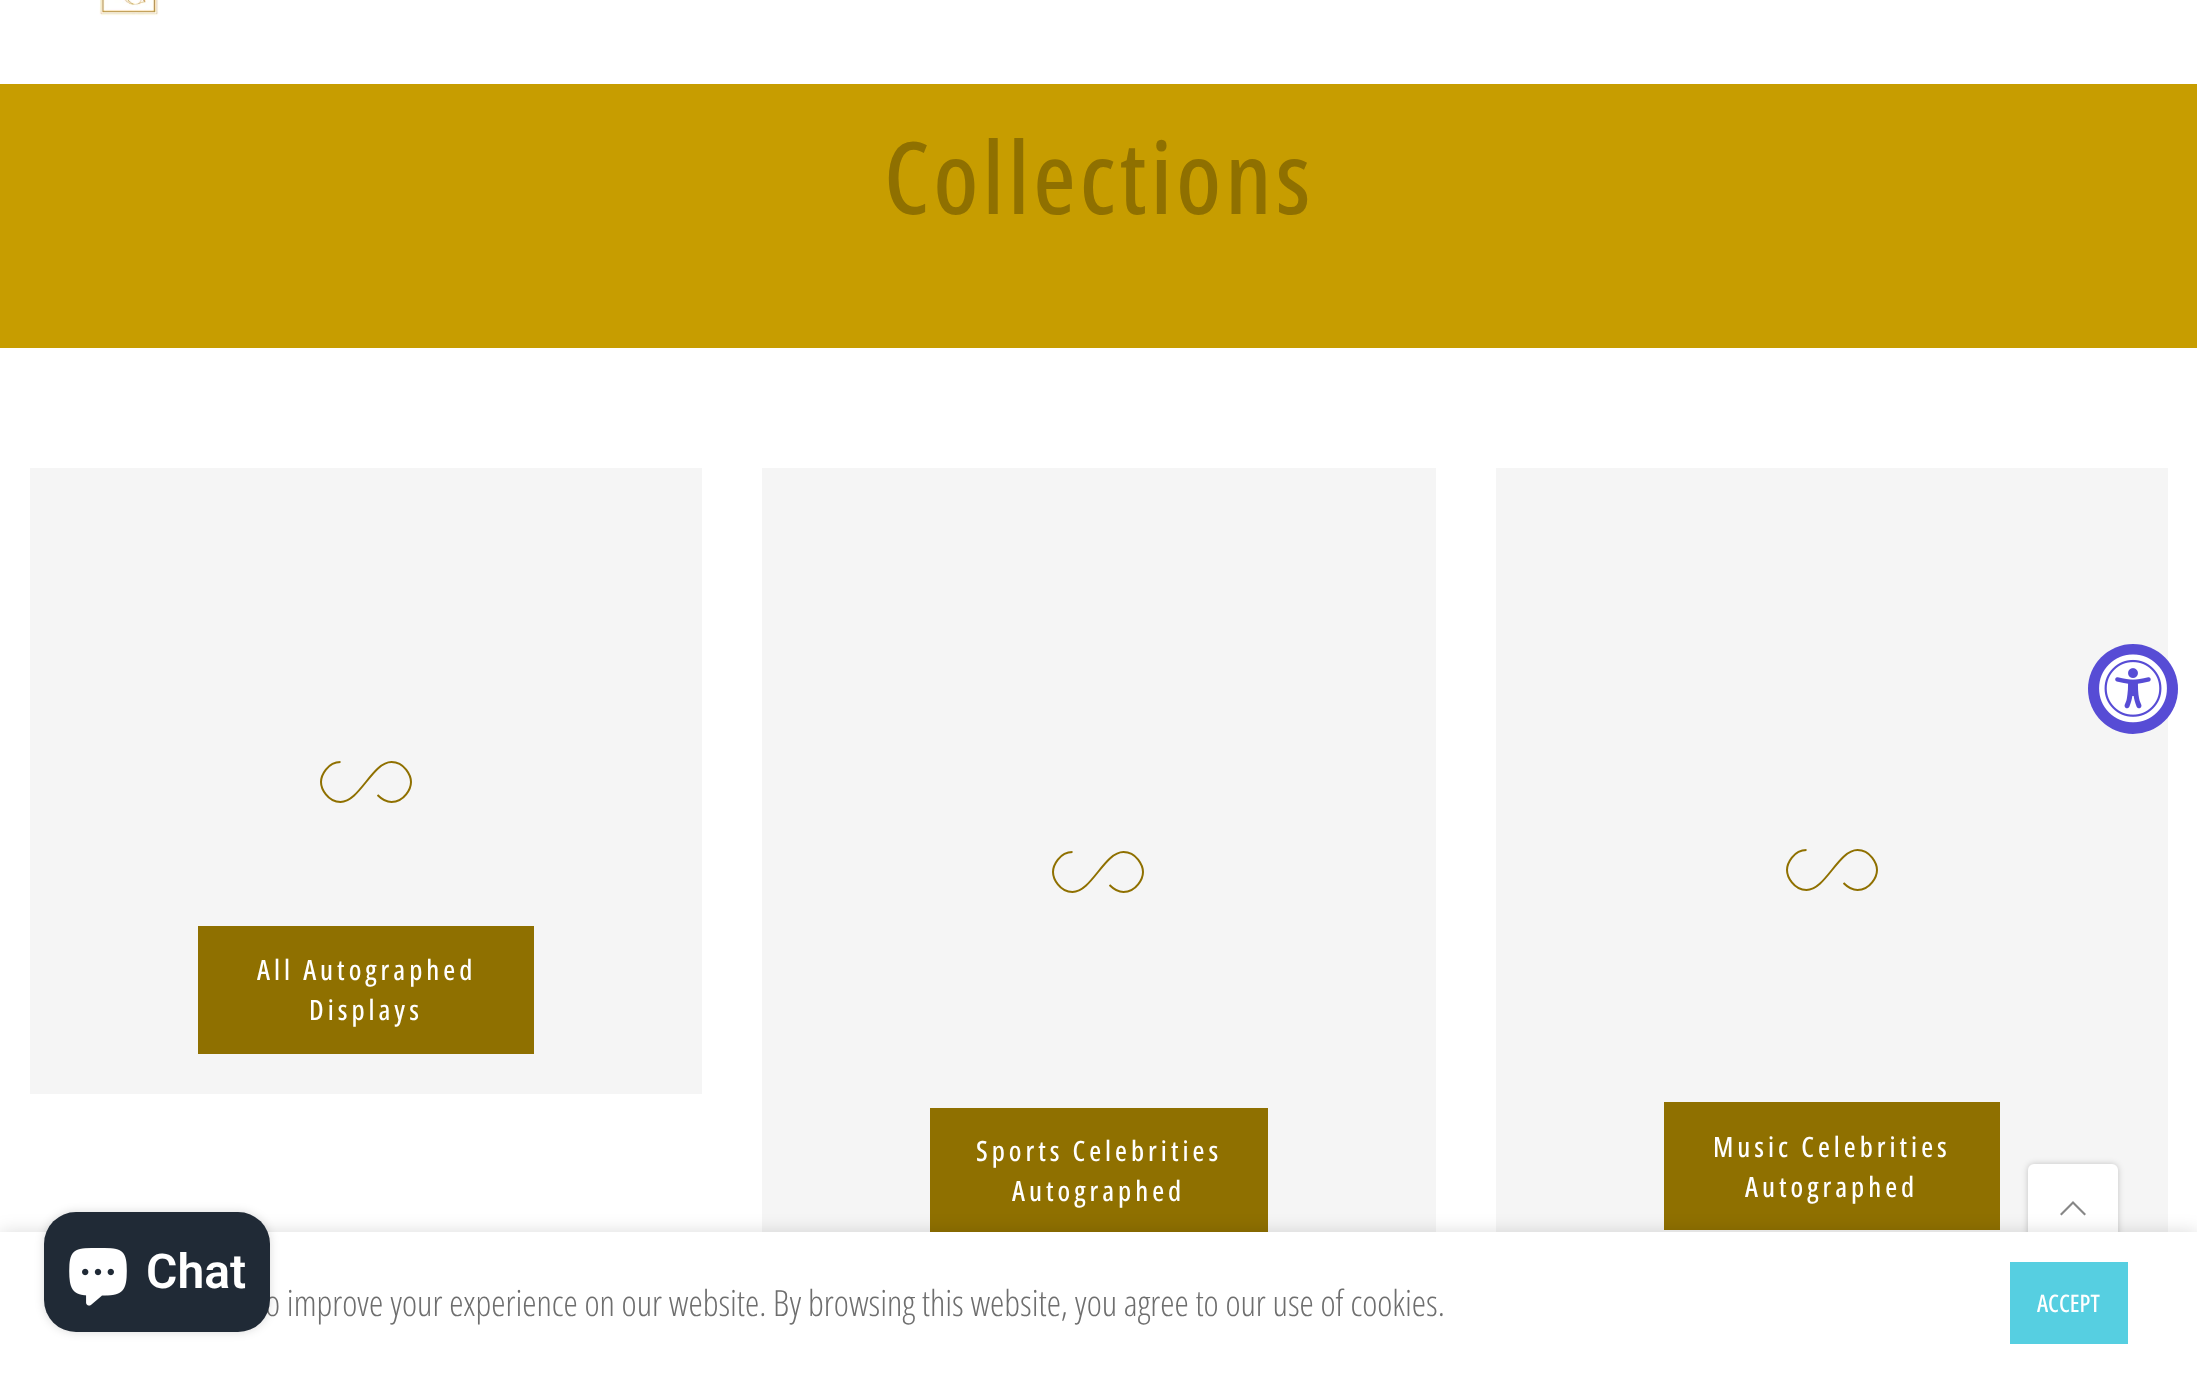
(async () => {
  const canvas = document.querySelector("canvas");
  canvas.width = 2197;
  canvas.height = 1373;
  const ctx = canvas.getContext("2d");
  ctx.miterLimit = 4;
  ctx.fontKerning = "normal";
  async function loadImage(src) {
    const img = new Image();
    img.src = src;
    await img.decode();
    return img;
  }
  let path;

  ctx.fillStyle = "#ffffff";
  ctx.fillRect(0, 0, 2197, 1373);
  ctx.drawImage(await loadImage("img/1.png"), 99, 0, 60, 16);
  ctx.fillStyle = "#c79d00";
  ctx.fillRect(0, 84, 2197, 264);
  ctx.fillStyle = "#f5f5f5";
  ctx.fillRect(30, 468, 672, 626);
  path = new Path2D("M340.5 762C327.5 762 321 775.5 321 782C321 788.5 327.5 802 340.5 802C359.5 802 372.5 762 391.5 762C404.5 762 411 775.5 411 782C411 788.5 404.5 802 391.5 802C386.5 802 382 799.5 377.5 795");
  ctx.strokeStyle = "#8f7000";
  ctx.lineWidth = 2;
  ctx.stroke(path);
  ctx.fillStyle = "#8f7000";
  ctx.fillRect(198, 926, 336, 128);
  ctx.fillStyle = "#f5f5f5";
  ctx.fillRect(762, 468, 674, 764);
  path = new Path2D("M1072.5 852C1059.5 852 1053 865.5 1053 872C1053 878.5 1059.5 892 1072.5 892C1091.5 892 1104.5 852 1123.5 852C1136.5 852 1143 865.5 1143 872C1143 878.5 1136.5 892 1123.5 892C1118.5 892 1114 889.5 1109.5 885");
  ctx.stroke(path);
  ctx.fillStyle = "#8f7000";
  ctx.fillRect(930, 1108, 338, 124);
  ctx.fillStyle = "#f5f5f5";
  ctx.fillRect(1496, 468, 672, 764);
  path = new Path2D("M1806.5 850C1793.5 850 1787 863.5 1787 870C1787 876.5 1793.5 890 1806.5 890C1825.5 890 1838.5 850 1857.5 850C1870.5 850 1877 863.5 1877 870C1877 876.5 1870.5 890 1857.5 890C1852.5 890 1848 887.5 1843.5 883");
  ctx.stroke(path);
  ctx.fillStyle = "#8f7000";
  ctx.fillRect(1664, 1102, 336, 128);
  ctx.fillStyle = "#574cd5";
  ctx.beginPath();
  ctx.arc(2133, 689, 45, 0, Math.PI * 2);
  ctx.fill();
  ctx.drawImage(await loadImage("img/2.png"), 2099, 654, 68, 69);
  ctx.fillStyle = "rgba(0, 0, 0, 0.2)";
  ctx.filter = "blur(3px)";
  ctx.beginPath();
  ctx.roundRect(2028, 1164, 90, 90, 6);
  ctx.fill();
  ctx.filter = "none";
  ctx.fillStyle = "#ffffff";
  ctx.beginPath();
  ctx.roundRect(2028, 1164, 90, 90, 6);
  ctx.fill();
  ctx.fillStyle = "#878787";
  path = new Path2D("M2074.5 1202.5L2073 1201L2060 1214L2061.5 1215.5L2073 1204L2084.5 1215.5L2086 1214Z");
  ctx.fill(path);
  ctx.fillStyle = "rgba(0, 0, 0, 0.14)";
  ctx.filter = "blur(9px)";
  ctx.beginPath();
  ctx.rect(0, 1232, 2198, 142);
  ctx.fill();
  ctx.filter = "none";
  ctx.fillStyle = "#ffffff";
  ctx.fillRect(0, 1232, 2197, 141);
  ctx.fillStyle = "rgba(0, 0, 0, 0.15)";
  ctx.filter = "blur(5px)";
  ctx.beginPath();
  ctx.roundRect(44, 1212, 226, 120, 32);
  ctx.fill();
  ctx.filter = "none";
  ctx.fillStyle = "#56cfe1";
  ctx.fillRect(2010, 1262, 118, 82);
  ctx.letterSpacing = "4px";
  ctx.font = "500 100px Open Sans Condensed";
  ctx.fillStyle = "#8f7000";
  ctx.fillText("Collections", 884, 214);
  ctx.font = "500 28px Open Sans Condensed";
  ctx.fillStyle = "#ffffff";
  for (const [text, x, y] of [
    ["All Autographed", 257, 980],
    ["Displays", 309, 1020],
    ["Sports Celebrities", 976, 1161],
    ["Autographed", 1012, 1201],
    ["Music Celebrities", 1713, 1157],
    ["Autographed", 1745, 1197],
  ]) {
    ctx.fillText(text, x, y);
  }
  ctx.letterSpacing = "0px";
  ctx.font = "300 36px Open Sans Condensed";
  ctx.fillStyle = "#6e6e6e";
  ctx.fillText("o improve your experience on our website. By browsing this website, you agree to our use of cookies.", 265, 1316);
  ctx.fillStyle = "#202a36";
  ctx.beginPath();
  ctx.roundRect(44, 1212, 226, 120, 32);
  ctx.fill();
  ctx.font = "600 48px Roboto";
  ctx.fillStyle = "#ffffff";
  ctx.fillText("Chat", 146, 1288);
  ctx.drawImage(await loadImage("img/3.png"), 69, 1248, 58, 58);
  ctx.font = "500 24px Open Sans Condensed";
  ctx.fillText("ACCEPT", 2037, 1312);
})();
